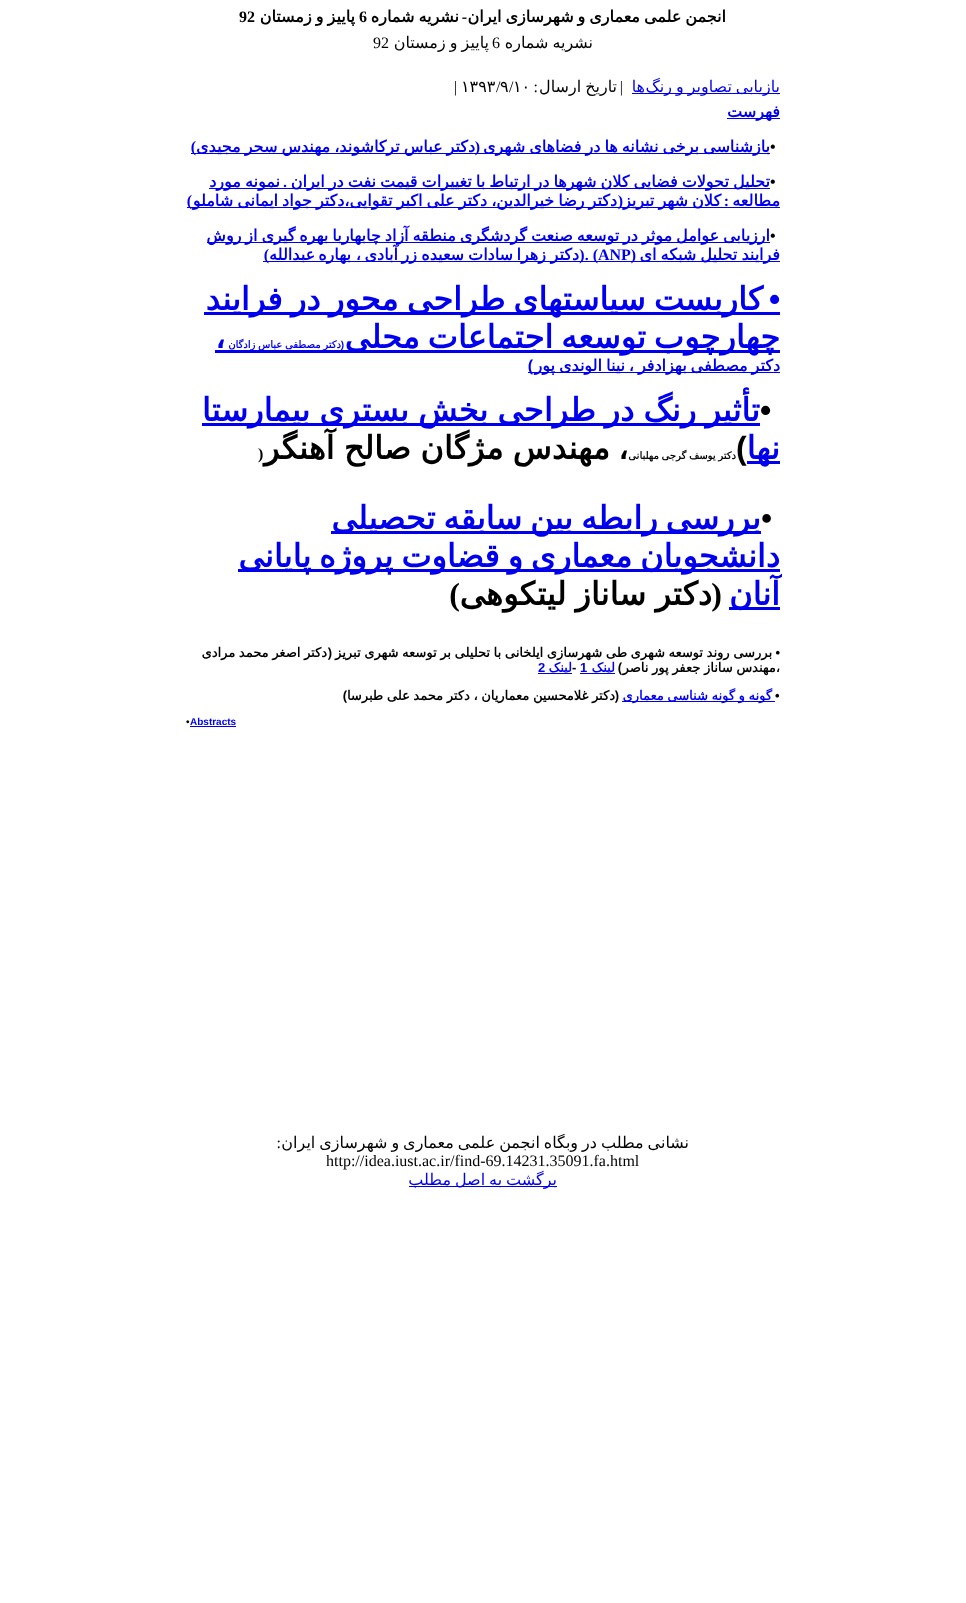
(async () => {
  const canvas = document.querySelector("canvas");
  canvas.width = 966;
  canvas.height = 1603;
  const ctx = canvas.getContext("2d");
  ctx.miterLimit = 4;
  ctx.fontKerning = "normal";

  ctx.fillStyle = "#ffffff";
  ctx.fillRect(0, 0, 966, 1603);
  for (const [x, y, w, h, color] of [
    [632, 93, 148, 1, "#0000ee"],
    [727, 118, 53, 1, "#0000ee"],
    [191, 153, 579, 1, "#0000ee"],
    [209, 188, 561, 1, "#0000ee"],
    [187, 207, 593, 1, "#0000ee"],
    [207, 242, 563, 1, "#0000ee"],
    [263, 261, 517, 1, "#0000ee"],
    [204, 312, 576, 3, "#0000ee"],
    [215, 350, 565, 3, "#0000ee"],
    [528, 372, 252, 1, "#0000ee"],
    [202, 423, 558, 3, "#0000ee"],
    [747, 461, 33, 3, "#0000ee"],
    [331, 531, 430, 3, "#0000ee"],
    [238, 569, 542, 3, "#0000ee"],
    [729, 607, 51, 3, "#0000ee"],
    [580, 673, 35, 1, "#0000ee"],
    [538, 673, 34, 1, "#0000ee"],
    [622, 701, 153, 1, "#0000ee"],
    [190, 726, 46, 1, "#0000ee"],
    [409, 1186, 148, 1, "#0000ee"],
  ]) {
    ctx.fillStyle = color;
    ctx.fillRect(x, y, w, h);
  }
  ctx.wordSpacing = "-1.1px";
  ctx.direction = "rtl";
  ctx.font = "bold 16px DejaVu Sans";
  ctx.fillStyle = "#000000";
  ctx.fillText("انجمن علمی معماری و شهرسازی ایران", 726, 22);
  ctx.wordSpacing = "0px";
  ctx.font = "bold 16px Liberation Serif";
  ctx.fillText("-", 467, 22);
  ctx.wordSpacing = "-1.1px";
  ctx.font = "bold 16px DejaVu Sans";
  ctx.fillText("نشریه شماره", 459, 22);
  ctx.wordSpacing = "0px";
  ctx.direction = "ltr";
  ctx.font = "bold 16px Liberation Serif";
  ctx.fillText("6", 359, 22);
  ctx.wordSpacing = "-1px";
  ctx.direction = "rtl";
  ctx.font = "bold 16px DejaVu Sans";
  ctx.fillText("پاییز و زمستان", 355, 22);
  ctx.wordSpacing = "0px";
  ctx.direction = "ltr";
  ctx.font = "bold 16px Liberation Serif";
  ctx.fillText("92", 239, 22);
  ctx.wordSpacing = "-1.1px";
  ctx.direction = "rtl";
  ctx.font = "16px DejaVu Sans";
  ctx.fillText("نشریه شماره", 593, 48);
  ctx.wordSpacing = "0px";
  ctx.direction = "ltr";
  ctx.font = "16px Liberation Serif";
  ctx.fillText("6", 492, 48);
  ctx.wordSpacing = "-1px";
  ctx.direction = "rtl";
  ctx.font = "16px DejaVu Sans";
  ctx.fillText("پاییز و زمستان", 489, 48);
  ctx.wordSpacing = "0px";
  ctx.direction = "ltr";
  ctx.font = "16px Liberation Serif";
  ctx.fillText("92", 373, 48);
  ctx.wordSpacing = "-1.1px";
  ctx.direction = "rtl";
  ctx.font = "16px DejaVu Sans";
  ctx.fillStyle = "#0000ee";
  ctx.fillText("بازیابی تصاویر و رنگ", 780, 92);
  ctx.wordSpacing = "0px";
  ctx.fillText("ها", 645, 92);
  ctx.font = "16px Liberation Serif";
  ctx.fillStyle = "#000000";
  ctx.fillText("|", 623, 92);
  ctx.wordSpacing = "-1px";
  ctx.font = "16px DejaVu Sans";
  ctx.fillText("تاریخ ارسال", 617, 92);
  ctx.wordSpacing = "0px";
  ctx.font = "16px Liberation Serif";
  ctx.fillText(":", 538, 92);
  ctx.direction = "ltr";
  ctx.font = "16px DejaVu Sans";
  ctx.fillText("۱۰", 513, 92);
  ctx.fillText("۹", 500, 92);
  ctx.font = "16px Liberation Serif";
  ctx.fillText("/", 509, 92);
  ctx.font = "16px DejaVu Sans";
  ctx.fillText("۱۳۹۳", 461, 92);
  ctx.font = "16px Liberation Serif";
  ctx.fillText("/", 496, 92);
  ctx.fillText("|", 454, 92);
  ctx.direction = "rtl";
  ctx.font = "bold 16px DejaVu Sans";
  ctx.fillStyle = "#0000ee";
  ctx.fillText("فهرست", 780, 117);
  ctx.wordSpacing = "-1px";
  ctx.fillText("دکتر عباس ترکاشوند، مهندس سحر مجیدی", 475, 152);
  ctx.wordSpacing = "0px";
  ctx.font = "bold 16px Liberation Serif";
  ctx.fillText(")", 196, 152);
  ctx.direction = "ltr";
  ctx.fillStyle = "#000000";
  ctx.fillText("•", 770, 152);
  ctx.wordSpacing = "-1px";
  ctx.direction = "rtl";
  ctx.font = "bold 16px DejaVu Sans";
  ctx.fillStyle = "#0000ee";
  ctx.fillText("بازشناسی برخی نشانه ها در فضاهای شهری", 770, 152);
  ctx.wordSpacing = "0px";
  ctx.font = "bold 16px Liberation Serif";
  ctx.fillText("(", 480, 152);
  ctx.wordSpacing = "-1px";
  ctx.font = "bold 16px DejaVu Sans";
  ctx.fillText("نمونه مورد", 280, 187);
  ctx.wordSpacing = "0px";
  ctx.direction = "ltr";
  ctx.font = "bold 16px Liberation Serif";
  ctx.fillStyle = "#000000";
  ctx.fillText("•", 770, 187);
  ctx.wordSpacing = "-1px";
  ctx.direction = "rtl";
  ctx.font = "bold 16px DejaVu Sans";
  ctx.fillStyle = "#0000ee";
  ctx.fillText("تحلیل تحولات فضایی کلان شهرها در ارتباط با تغییرات قیمت نفت در ایران", 770, 187);
  ctx.wordSpacing = "0px";
  ctx.font = "bold 16px Liberation Serif";
  ctx.fillText(".", 287, 187);
  ctx.font = "bold 16px DejaVu Sans";
  ctx.fillText("مطالعه", 780, 206);
  ctx.font = "bold 16px Liberation Serif";
  ctx.fillText(")", 192, 206);
  ctx.wordSpacing = "-1px";
  ctx.font = "bold 16px DejaVu Sans";
  ctx.fillText("دکتر رضا خیرالدین، دکتر علی اکبر تقوایی،دکتر جواد ایمانی شاملو", 617, 206);
  ctx.wordSpacing = "0px";
  ctx.font = "bold 16px Liberation Serif";
  ctx.fillText(":", 729, 206);
  ctx.fillText("(", 623, 206);
  ctx.wordSpacing = "-1px";
  ctx.font = "bold 16px DejaVu Sans";
  ctx.fillText("کلان شهر تبریز", 721, 206);
  ctx.wordSpacing = "0px";
  ctx.direction = "ltr";
  ctx.font = "bold 16px Liberation Serif";
  ctx.fillStyle = "#000000";
  ctx.fillText("•", 770, 241);
  ctx.wordSpacing = "-1.1px";
  ctx.direction = "rtl";
  ctx.font = "bold 16px DejaVu Sans";
  ctx.fillStyle = "#0000ee";
  ctx.fillText("ارزیابی عوامل موثر در توسعه صنعت گردشگری منطقه آزاد چابهاربا بهره گیری از روش", 770, 241);
  ctx.wordSpacing = "-1px";
  ctx.fillText("فرایند تحلیل شبکه ای", 780, 260);
  ctx.wordSpacing = "0px";
  ctx.font = "bold 16px Liberation Serif";
  ctx.fillText("(", 636, 260);
  ctx.fillText(") .(", 598, 260);
  ctx.direction = "ltr";
  ctx.fillText("ANP", 598, 260);
  ctx.direction = "rtl";
  ctx.font = "bold 16px DejaVu Sans";
  for (const [text, x, y] of [
    ["دکتر", 579, 260],
    ["زهرا", 546, 260],
    ["سادات", 513, 260],
    ["سعیده", 464, 260],
    ["زر", 417, 260],
    ["آبادی", 398, 260],
    ["،", 361, 260],
    ["بهاره", 351, 260],
    ["عبدالله", 315, 260],
  ]) {
    ctx.fillText(text, x, y);
  }
  ctx.font = "bold 16px Liberation Serif";
  ctx.fillText(")", 269, 260);
  ctx.direction = "ltr";
  ctx.font = "bold 32px Liberation Sans";
  ctx.fillText("•", 769, 310);
  ctx.wordSpacing = "-2px";
  ctx.direction = "rtl";
  ctx.font = "bold 32px DejaVu Sans";
  ctx.fillText("کاربست سیاستهای طراحی محور در فرایند", 763, 310);
  ctx.wordSpacing = "-2.25px";
  ctx.fillText("چهارچوب توسعه اجتماعات محلی", 780, 348);
  ctx.wordSpacing = "-0.5px";
  ctx.font = "bold 10px DejaVu Sans";
  ctx.fillText("دکتر مصطفی عباس زادگان", 341, 348);
  ctx.wordSpacing = "0px";
  ctx.font = "bold 10px Liberation Sans";
  ctx.fillText("(", 344, 348);
  ctx.direction = "ltr";
  ctx.font = "bold 32px DejaVu Sans";
  ctx.fillText("،", 215, 348);
  ctx.wordSpacing = "-1.1px";
  ctx.direction = "rtl";
  ctx.font = "bold 16px DejaVu Sans";
  ctx.fillText("دکتر مصطفی بهزادفر ،", 780, 371);
  ctx.wordSpacing = "0px";
  ctx.font = "bold 16px Liberation Sans";
  ctx.fillText(")", 533, 371);
  ctx.wordSpacing = "-1px";
  ctx.font = "bold 16px DejaVu Sans";
  ctx.fillText("نینا الوندی پور", 625, 371);
  ctx.wordSpacing = "0px";
  ctx.direction = "ltr";
  ctx.font = "bold 32px Liberation Sans";
  ctx.fillStyle = "#000000";
  ctx.fillText("•", 760, 421);
  ctx.wordSpacing = "-1.25px";
  ctx.direction = "rtl";
  ctx.font = "bold 32px DejaVu Sans";
  ctx.fillStyle = "#0000ee";
  ctx.fillText("تأثیر رنگ در طراحی بخش بستری بیمارستا", 760, 421);
  ctx.wordSpacing = "0px";
  ctx.fillText("نها", 780, 459);
  ctx.direction = "ltr";
  ctx.font = "bold 32px Liberation Sans";
  ctx.fillStyle = "#000000";
  ctx.fillText("(", 736, 459);
  ctx.wordSpacing = "-0.5px";
  ctx.direction = "rtl";
  ctx.font = "bold 10px DejaVu Sans";
  ctx.fillText("دکتر یوسف گرجی مهلبانی", 736, 459);
  ctx.wordSpacing = "0px";
  ctx.direction = "ltr";
  ctx.font = "bold 32px DejaVu Sans";
  ctx.fillText("،", 618, 459);
  ctx.wordSpacing = "-1px";
  ctx.direction = "rtl";
  ctx.fillText("مهندس مژگان صالح آهنگر", 610, 459);
  ctx.wordSpacing = "0px";
  ctx.direction = "ltr";
  ctx.font = "bold 16px Liberation Serif";
  ctx.fillText(")", 258, 459);
  ctx.font = "bold 32px Liberation Serif";
  ctx.fillText("•", 761, 529);
  ctx.wordSpacing = "-2.25px";
  ctx.direction = "rtl";
  ctx.font = "bold 32px DejaVu Sans";
  ctx.fillStyle = "#0000ee";
  ctx.fillText("بررسی رابطه بین سابقه تحصیلی", 761, 529);
  ctx.fillText("دانشجویان معماری و قضاوت پروژه پایانی", 780, 567);
  ctx.wordSpacing = "0px";
  ctx.fillText("آنان", 780, 605);
  ctx.font = "bold 32px Liberation Serif";
  ctx.fillStyle = "#000000";
  ctx.fillText("(", 722, 605);
  ctx.wordSpacing = "-1px";
  ctx.font = "bold 32px DejaVu Sans";
  ctx.fillText("دکتر ساناز لیتکوهی", 712, 605);
  ctx.wordSpacing = "0px";
  ctx.font = "bold 32px Liberation Serif";
  ctx.fillText(")", 460, 605);
  ctx.wordSpacing = "-0.5px";
  ctx.font = "bold 13px DejaVu Sans";
  ctx.fillText("بررسی روند توسعه شهری طی شهرسازی ایلخانی با تحلیلی بر توسعه شهری تبریز", 772, 657);
  ctx.wordSpacing = "0px";
  ctx.font = "bold 13px Liberation Sans";
  ctx.fillText("•", 780, 657);
  ctx.wordSpacing = "-0.5px";
  ctx.font = "bold 13px DejaVu Sans";
  ctx.fillText("دکتر اصغر محمد مرادی", 327, 657);
  ctx.wordSpacing = "0px";
  ctx.font = "bold 13px Liberation Sans";
  ctx.fillText("(", 332, 657);
  ctx.fillText(")", 622, 672);
  ctx.wordSpacing = "-0.5px";
  ctx.font = "bold 13px DejaVu Sans";
  ctx.fillText("،مهندس ساناز جعفر پور ناصر", 780, 672);
  ctx.wordSpacing = "0px";
  ctx.fillStyle = "#0000ee";
  ctx.fillText("لینک", 615, 672);
  ctx.direction = "ltr";
  ctx.font = "bold 13px Liberation Sans";
  ctx.fillText("1", 580, 672);
  ctx.fillStyle = "#000000";
  ctx.fillText("-", 572, 672);
  ctx.direction = "rtl";
  ctx.font = "bold 13px DejaVu Sans";
  ctx.fillStyle = "#0000ee";
  ctx.fillText("لینک", 572, 672);
  ctx.direction = "ltr";
  ctx.font = "bold 13px Liberation Sans";
  ctx.fillText("2", 538, 672);
  ctx.wordSpacing = "-0.5px";
  ctx.direction = "rtl";
  ctx.font = "bold 13px DejaVu Sans";
  ctx.fillText("گونه و گونه شناسی معماری", 772, 700);
  ctx.fillStyle = "#000000";
  ctx.fillText("دکتر غلامحسین معماریان ، دکتر محمد علی طبرسا", 615, 700);
  ctx.wordSpacing = "0px";
  ctx.font = "bold 13px Liberation Sans";
  ctx.fillText(")", 347, 700);
  ctx.direction = "ltr";
  ctx.fillText("•", 775, 700);
  ctx.direction = "rtl";
  ctx.fillText("(", 619, 700);
  ctx.direction = "ltr";
  ctx.font = "bold 10px Liberation Sans";
  ctx.fillStyle = "#0000ee";
  ctx.fillText("Abstracts", 190, 725);
  ctx.fillStyle = "#000000";
  ctx.fillText("•", 186, 725);
  ctx.wordSpacing = "-1.1px";
  ctx.direction = "rtl";
  ctx.font = "16px DejaVu Sans";
  ctx.fillText("نشانی مطلب در وبگاه انجمن علمی معماری و شهرسازی ایران", 689, 1148);
  ctx.wordSpacing = "0px";
  ctx.font = "16px Liberation Serif";
  ctx.fillText(":", 281, 1148);
  ctx.direction = "ltr";
  ctx.fillText("http://idea.iust.ac.ir/find-69.14231.35091.fa.html", 326, 1166);
  ctx.wordSpacing = "-1.1px";
  ctx.direction = "rtl";
  ctx.font = "16px DejaVu Sans";
  ctx.fillStyle = "#0000ee";
  ctx.fillText("برگشت به اصل مطلب", 557, 1185);
})();
